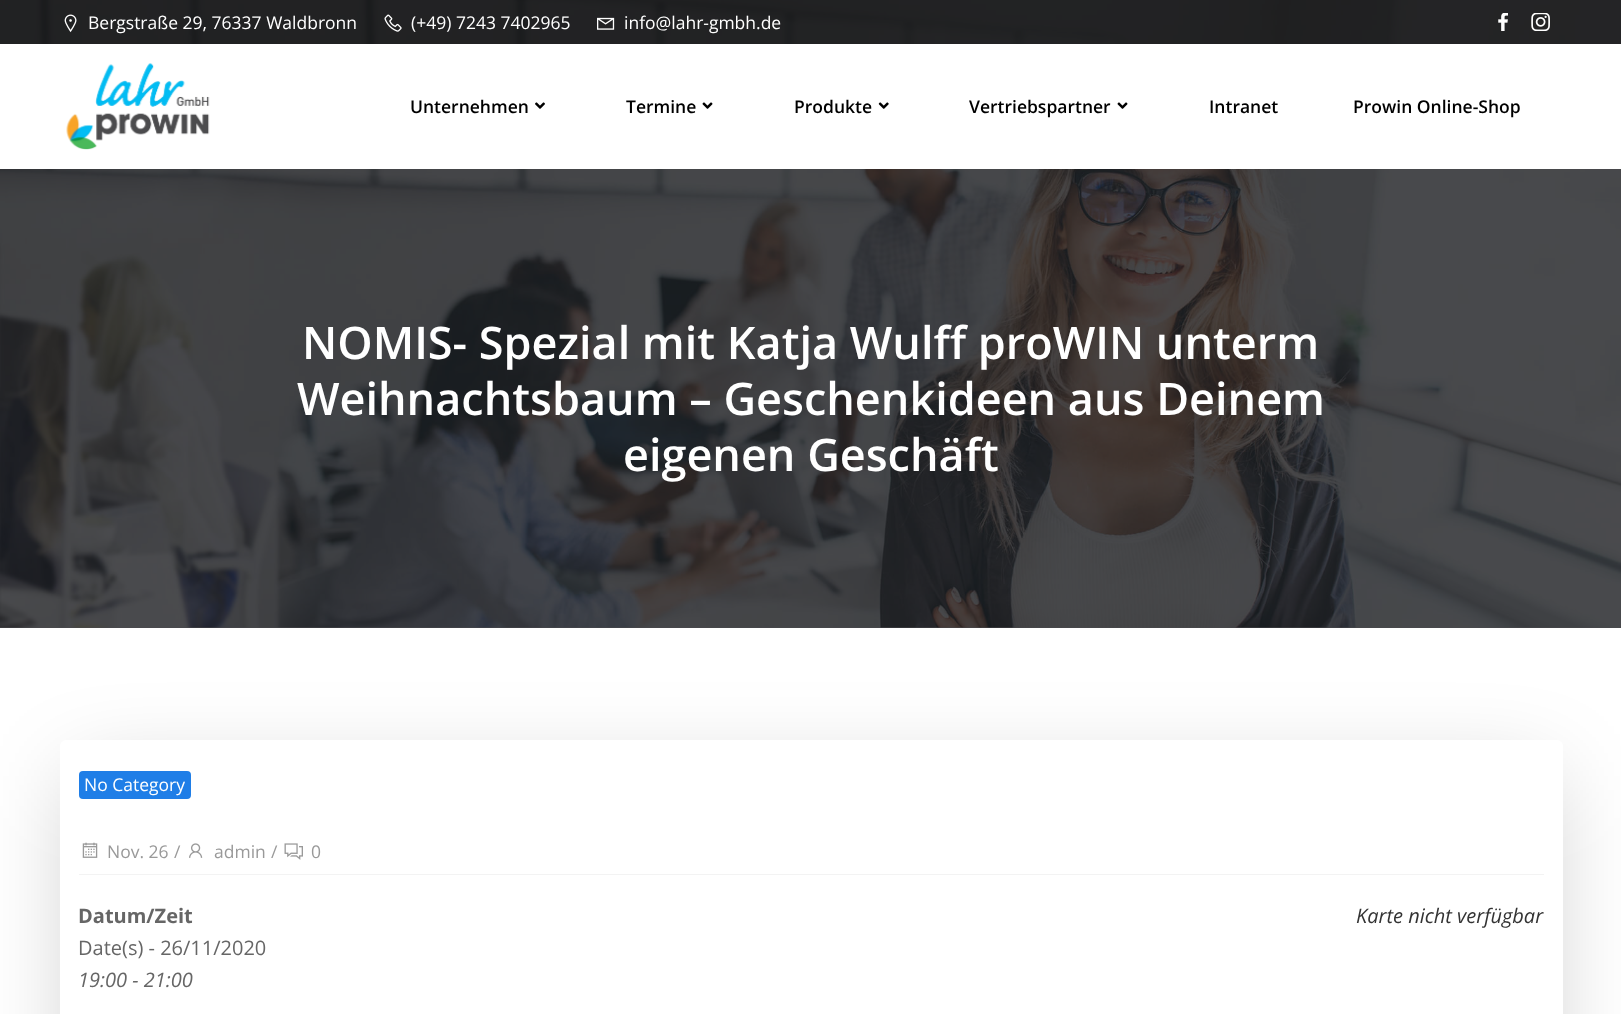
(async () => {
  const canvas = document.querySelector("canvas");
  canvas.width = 1621;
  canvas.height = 1014;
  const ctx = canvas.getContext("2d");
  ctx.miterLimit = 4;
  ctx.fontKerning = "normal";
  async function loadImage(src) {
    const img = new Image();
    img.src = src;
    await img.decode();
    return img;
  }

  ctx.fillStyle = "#ffffff";
  ctx.fillRect(0, 0, 1621, 1014);
  ctx.fillStyle = "#49494c";
  ctx.fillRect(0, 627, 1621, 1);
  ctx.drawImage(await loadImage("img/10.png"), 0, 0, 1621, 628);
  ctx.fillStyle = "rgba(0, 0, 0, 0.5)";
  ctx.fillRect(0, 0, 1621, 44);
  ctx.drawImage(await loadImage("img/1.png"), 64, 14, 13, 19);
  ctx.drawImage(await loadImage("img/2.png"), 384, 14, 18, 18);
  ctx.drawImage(await loadImage("img/3.png"), 597, 17, 18, 13);
  ctx.drawImage(await loadImage("img/4.png"), 1498, 13, 10, 18);
  ctx.drawImage(await loadImage("img/5.png"), 1531, 13, 19, 18);
  ctx.fillStyle = "#ffffff";
  ctx.fillRect(0, 44, 1621, 125);
  ctx.drawImage(await loadImage("img/6.png"), 66, 63, 144, 87);
  ctx.drawImage(await loadImage("img/7.png"), 535, 102, 10, 7);
  ctx.drawImage(await loadImage("img/8.png"), 702, 102, 11, 7);
  ctx.drawImage(await loadImage("img/9.png"), 878, 102, 11, 7);
  ctx.drawImage(await loadImage("img/8.png"), 1117, 102, 11, 7);
  ctx.fillStyle = "rgba(0, 0, 0, 0.2)";
  ctx.filter = "blur(44.5px)";
  ctx.beginPath();
  ctx.rect(73, 776, 1477, 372);
  ctx.fill();
  ctx.filter = "none";
  ctx.fillStyle = "#ffffff";
  ctx.beginPath();
  ctx.roundRect(60, 740, 1503, 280, 6);
  ctx.fill();
  ctx.fillStyle = "#1f7ee7";
  ctx.beginPath();
  ctx.roundRect(79, 771, 112, 28, 4);
  ctx.fill();
  ctx.drawImage(await loadImage("img/11.png"), 82, 842, 16, 16);
  ctx.drawImage(await loadImage("img/12.png"), 189, 843, 14, 15);
  ctx.drawImage(await loadImage("img/13.png"), 284, 843, 19, 17);
  ctx.fillStyle = "#f3f3f3";
  ctx.fillRect(79, 874, 1465, 1);
  ctx.font = "17.5px Open Sans";
  ctx.fillStyle = "#ffffff";
  for (const [text, x, y] of [
    ["Bergstraße 29, 76337 Waldbronn", 88, 29],
    ["(+49) 7243 7402965", 411, 29],
    ["info@lahr-gmbh.de", 624, 29],
  ]) {
    ctx.fillText(text, x, y);
  }
  ctx.font = "600 17.5px Open Sans";
  ctx.fillStyle = "#000000";
  for (const [text, x, y] of [
    ["Unternehmen", 410, 113],
    ["Termine", 626, 113],
    ["Produkte", 794, 113],
    ["Vertriebspartner", 969, 113],
    ["Intranet", 1209, 113],
    ["Prowin Online-Shop", 1353, 113],
  ]) {
    ctx.fillText(text, x, y);
  }
  ctx.font = "600 45px Open Sans";
  ctx.fillStyle = "#ffffff";
  for (const [text, x, y] of [
    ["NOMIS- Spezial mit Katja Wulff proWIN unterm", 302, 359],
    ["Weihnachtsbaum – Geschenkideen aus Deinem", 297, 415],
    ["eigenen Geschäft", 623, 471],
  ]) {
    ctx.fillText(text, x, y);
  }
  ctx.font = "17.5px Open Sans";
  ctx.fillText("No Category", 84, 791);
  ctx.fillStyle = "#999999";
  for (const [text, x, y] of [
    ["Nov. 26", 107, 858],
    ["/", 174, 858],
    ["admin", 214, 858],
    ["/", 271, 858],
    ["0", 311, 858],
  ]) {
    ctx.fillText(text, x, y);
  }
  ctx.font = "bold 20px Open Sans";
  ctx.fillStyle = "#666666";
  ctx.fillText("Datum/Zeit", 78, 923);
  ctx.font = "20px Open Sans";
  ctx.fillText("Date(s) - 26/11/2020", 78, 955);
  ctx.font = "italic 20px Open Sans";
  ctx.fillText("19:00 - 21:00", 78, 987);
  ctx.fillStyle = "#333333";
  ctx.fillText("Karte nicht verfügbar", 1356, 923);
})();
